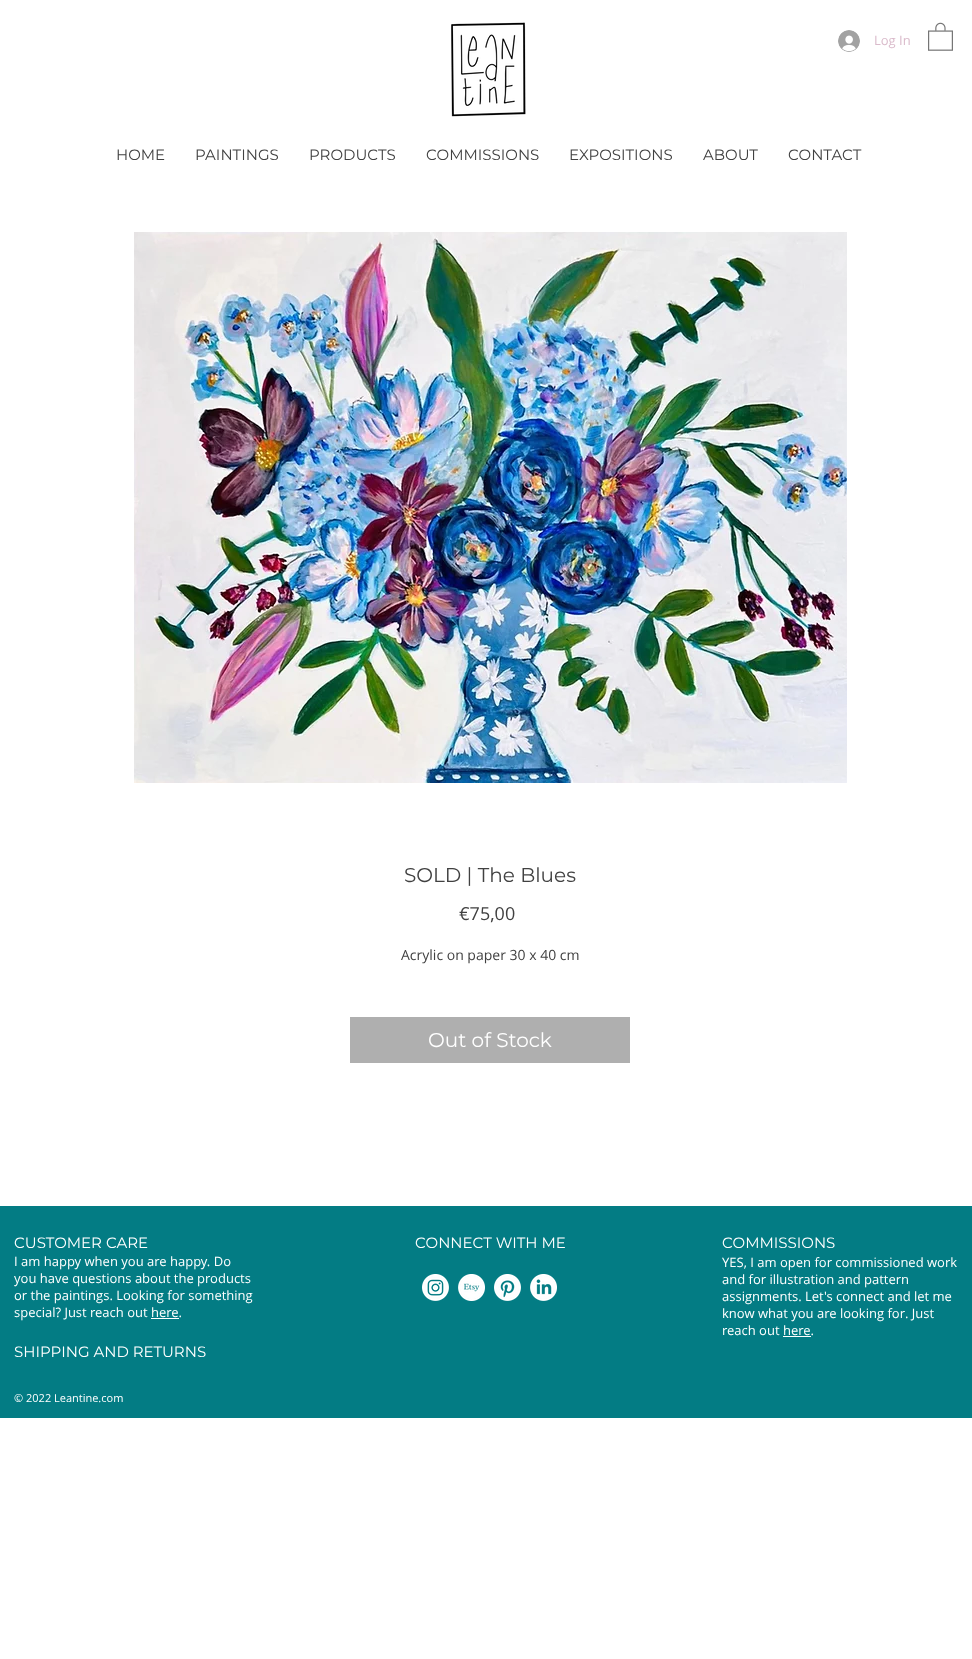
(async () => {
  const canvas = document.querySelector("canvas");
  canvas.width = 972;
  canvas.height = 1659;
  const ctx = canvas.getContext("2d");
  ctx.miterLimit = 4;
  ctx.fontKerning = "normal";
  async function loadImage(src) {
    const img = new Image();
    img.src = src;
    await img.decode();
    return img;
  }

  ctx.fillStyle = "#ffffff";
  ctx.fillRect(0, 0, 972, 1659);
  ctx.drawImage(await loadImage("img/1.png"), 451, 22, 75, 95);
  ctx.drawImage(await loadImage("img/2.png"), 838, 30, 22, 22);
  ctx.drawImage(await loadImage("img/3.png"), 928, 22, 25, 29);
  ctx.drawImage(await loadImage("img/4.png"), 134, 232, 713, 551);
  for (const [x, y, w, h, color] of [
    [350, 1017, 280, 46, "#afafaf"],
    [0, 1206, 972, 212, "#037c84"],
    [151, 1318, 28, 1, "#ffffff"],
  ]) {
    ctx.fillStyle = color;
    ctx.fillRect(x, y, w, h);
  }
  ctx.drawImage(await loadImage("img/5.png"), 422, 1274, 27, 27);
  ctx.drawImage(await loadImage("img/6.png"), 458, 1274, 27, 27);
  ctx.drawImage(await loadImage("img/7.png"), 494, 1274, 27, 27);
  ctx.drawImage(await loadImage("img/8.png"), 530, 1274, 27, 27);
  ctx.fillRect(783, 1336, 28, 1);
  ctx.font = "13px Open Sans";
  ctx.fillStyle = "#dabbcb";
  ctx.fillText("Log In", 874, 45);
  ctx.font = "15px Montserrat";
  ctx.fillStyle = "#414141";
  for (const [text, x, y] of [
    ["HOME", 116, 160],
    ["PAINTINGS", 195, 160],
    ["PRODUCTS", 309, 160],
    ["COMMISSIONS", 426, 160],
    ["EXPOSITIONS", 569, 160],
    ["ABOUT", 703, 160],
    ["CONTACT", 788, 160],
  ]) {
    ctx.fillText(text, x, y);
  }
  ctx.font = "20px Montserrat";
  ctx.fillText("SOLD | The Blues", 404, 882);
  ctx.font = "18px Open Sans";
  ctx.fillText("€75,00", 459, 920);
  ctx.font = "14px Open Sans";
  ctx.fillText("Acrylic on paper 30 x 40 cm", 401, 960);
  ctx.font = "20px Montserrat";
  ctx.fillStyle = "#ffffff";
  ctx.fillText("Out of Stock", 428, 1047);
  ctx.font = "15px Montserrat";
  for (const [text, x, y] of [
    ["CUSTOMER CARE", 14, 1248],
    ["CONNECT WITH ME", 415, 1248],
    ["COMMISSIONS", 722, 1248],
  ]) {
    ctx.fillText(text, x, y);
  }
  ctx.font = "13px Open Sans";
  for (const [text, x, y] of [
    ["I am happy when you are happy. Do", 14, 1266],
    ["you have questions about the products", 14, 1283],
    ["or the paintings. Looking for something", 14, 1300],
    ["special? Just reach out here.", 14, 1317],
    ["YES, I am open for commissioned work", 722, 1267],
    ["and for illustration and pattern", 722, 1284],
    ["assignments. Let's connect and let me", 722, 1301],
    ["know what you are looking for. Just", 722, 1318],
    ["reach out here.", 722, 1335],
  ]) {
    ctx.fillText(text, x, y);
  }
  ctx.font = "15px Montserrat";
  ctx.fillText("SHIPPING AND RETURNS", 14, 1357);
  ctx.font = "11px Open Sans";
  ctx.fillText("© 2022 Leantine.com", 14, 1402);
})();
